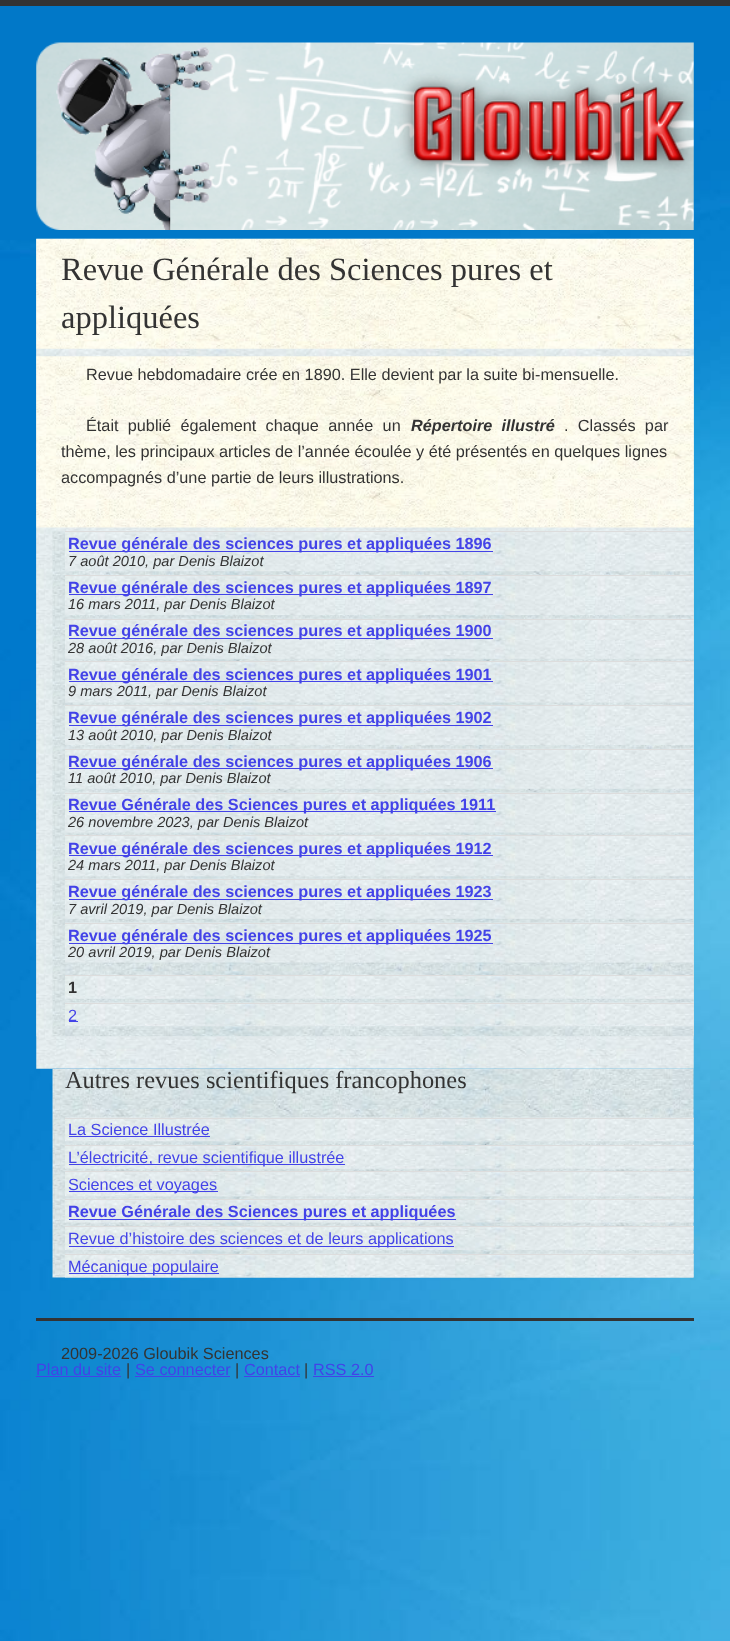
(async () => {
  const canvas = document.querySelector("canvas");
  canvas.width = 730;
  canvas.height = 1641;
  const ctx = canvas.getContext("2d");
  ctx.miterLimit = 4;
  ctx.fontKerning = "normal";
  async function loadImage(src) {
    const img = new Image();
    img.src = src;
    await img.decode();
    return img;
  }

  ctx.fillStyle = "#ffffff";
  ctx.fillRect(0, 0, 730, 1641);
  ctx.drawImage(await loadImage("img/1.png"), 0, 6, 730, 1635);
  ctx.fillStyle = "#333333";
  ctx.fillRect(0, 0, 730, 6);
  ctx.drawImage(await loadImage("img/2.png"), 36, 42, 658, 188);
  ctx.drawImage(await loadImage("img/3.png"), 36, 238, 658, 831);
  ctx.drawImage(await loadImage("img/4.png"), 36, 238, 658, 799);
  ctx.drawImage(await loadImage("img/5.png"), 36, 238, 658, 111);
  ctx.drawImage(await loadImage("img/6.png"), 36, 356, 658, 172);
  ctx.drawImage(await loadImage("img/7.png"), 52, 531, 642, 506);
  ctx.drawImage(await loadImage("img/8.png"), 65, 532, 629, 40);
  ctx.fillStyle = "#dddddd";
  ctx.fillRect(65, 531, 629, 1);
  ctx.fillStyle = "#4343e8";
  ctx.fillRect(69, 551, 424, 1);
  ctx.drawImage(await loadImage("img/9.png"), 65, 576, 629, 39);
  ctx.fillStyle = "#dddddd";
  ctx.fillRect(65, 575, 629, 1);
  ctx.fillStyle = "#4343e8";
  ctx.fillRect(69, 594, 424, 1);
  ctx.drawImage(await loadImage("img/10.png"), 65, 618, 629, 41);
  ctx.fillStyle = "#dddddd";
  ctx.fillRect(65, 619, 629, 1);
  ctx.fillStyle = "#4343e8";
  ctx.fillRect(69, 638, 424, 1);
  ctx.drawImage(await loadImage("img/11.png"), 65, 662, 629, 41);
  ctx.fillStyle = "#dddddd";
  ctx.fillRect(65, 661, 629, 1);
  ctx.fillStyle = "#4343e8";
  ctx.fillRect(69, 681, 424, 1);
  ctx.drawImage(await loadImage("img/12.png"), 65, 706, 629, 39);
  ctx.fillStyle = "#dddddd";
  ctx.fillRect(65, 705, 629, 1);
  ctx.fillStyle = "#4343e8";
  ctx.fillRect(69, 725, 424, 1);
  ctx.drawImage(await loadImage("img/13.png"), 65, 748, 629, 41);
  ctx.fillStyle = "#dddddd";
  ctx.fillRect(65, 749, 629, 1);
  ctx.fillStyle = "#4343e8";
  ctx.fillRect(69, 768, 424, 1);
  ctx.drawImage(await loadImage("img/14.png"), 65, 792, 629, 41);
  ctx.fillStyle = "#dddddd";
  ctx.fillRect(65, 793, 629, 1);
  ctx.fillStyle = "#4343e8";
  ctx.fillRect(69, 811, 427, 1);
  ctx.drawImage(await loadImage("img/15.png"), 65, 836, 629, 41);
  ctx.fillStyle = "#dddddd";
  ctx.fillRect(65, 835, 629, 1);
  ctx.fillStyle = "#4343e8";
  ctx.fillRect(69, 855, 424, 1);
  ctx.drawImage(await loadImage("img/16.png"), 65, 878, 629, 41);
  ctx.fillStyle = "#dddddd";
  ctx.fillRect(65, 879, 629, 1);
  ctx.fillStyle = "#4343e8";
  ctx.fillRect(69, 899, 424, 1);
  ctx.drawImage(await loadImage("img/17.png"), 65, 922, 629, 41);
  ctx.fillStyle = "#dddddd";
  ctx.fillRect(65, 923, 629, 1);
  ctx.fillStyle = "#4343e8";
  ctx.fillRect(69, 943, 424, 1);
  ctx.drawImage(await loadImage("img/18.png"), 65, 976, 629, 23);
  ctx.fillStyle = "#dddddd";
  ctx.fillRect(65, 975, 629, 1);
  ctx.drawImage(await loadImage("img/19.png"), 65, 1002, 629, 25);
  ctx.fillRect(65, 1003, 629, 1);
  ctx.fillStyle = "#4343e8";
  ctx.fillRect(69, 1021, 9, 1);
  ctx.drawImage(await loadImage("img/20.png"), 52, 1069, 642, 209);
  ctx.drawImage(await loadImage("img/21.png"), 65, 1117, 629, 25);
  ctx.fillStyle = "#dddddd";
  ctx.fillRect(65, 1118, 629, 1);
  ctx.fillStyle = "#4343e8";
  ctx.fillRect(69, 1136, 141, 1);
  ctx.drawImage(await loadImage("img/22.png"), 65, 1146, 629, 23);
  ctx.fillStyle = "#dddddd";
  ctx.fillRect(65, 1145, 629, 1);
  ctx.fillStyle = "#4343e8";
  ctx.fillRect(69, 1164, 276, 1);
  ctx.drawImage(await loadImage("img/23.png"), 65, 1172, 629, 25);
  ctx.fillStyle = "#dddddd";
  ctx.fillRect(65, 1171, 629, 1);
  ctx.fillStyle = "#4343e8";
  ctx.fillRect(69, 1191, 149, 1);
  ctx.drawImage(await loadImage("img/24.png"), 65, 1198, 629, 25);
  ctx.fillStyle = "#dddddd";
  ctx.fillRect(65, 1199, 629, 1);
  ctx.fillStyle = "#4343e8";
  ctx.fillRect(69, 1219, 387, 1);
  ctx.drawImage(await loadImage("img/25.png"), 65, 1227, 629, 23);
  ctx.fillStyle = "#dddddd";
  ctx.fillRect(65, 1226, 629, 1);
  ctx.fillStyle = "#4343e8";
  ctx.fillRect(69, 1246, 385, 1);
  ctx.drawImage(await loadImage("img/26.png"), 65, 1253, 629, 25);
  for (const [x, y, w, h, color] of [
    [65, 1254, 629, 1, "#dddddd"],
    [69, 1273, 150, 1, "#4343e8"],
    [36, 1318, 658, 3, "#333333"],
    [36, 1376, 85, 1, "#4343e8"],
    [135, 1376, 95, 1, "#4343e8"],
    [244, 1376, 56, 1, "#4343e8"],
    [313, 1376, 61, 1, "#4343e8"],
  ]) {
    ctx.fillStyle = color;
    ctx.fillRect(x, y, w, h);
  }
  ctx.font = "32.5px Liberation Serif";
  ctx.fillStyle = "#333333";
  ctx.fillText("Revue Générale des Sciences pures et", 61, 280);
  ctx.fillText("appliquées", 61, 328);
  ctx.font = "16.25px Liberation Sans";
  ctx.fillText("Revue hebdomadaire crée en 1890. Elle devient par la suite bi-mensuelle.", 86, 380);
  ctx.wordSpacing = "4.75px";
  ctx.fillText("Était publié également chaque année un", 86, 431);
  ctx.font = "italic bold 16.25px Liberation Sans";
  ctx.fillText("Répertoire illustré", 411, 431);
  ctx.font = "16.25px Liberation Sans";
  ctx.fillText(". Classés par", 564, 431);
  ctx.wordSpacing = "0px";
  ctx.fillText("thème, les principaux articles de l’année écoulée y été présentés en quelques lignes", 61, 457);
  ctx.fillText("accompagnés d’une partie de leurs illustrations.", 61, 483);
  ctx.font = "bold 16.25px Liberation Sans";
  ctx.fillStyle = "#4343e8";
  ctx.fillText("Revue générale des sciences pures et appliquées 1896", 68, 549);
  ctx.font = "italic 14.6px Liberation Sans";
  ctx.fillStyle = "#333333";
  ctx.fillText("7 août 2010, par Denis Blaizot", 68, 566);
  ctx.font = "bold 16.25px Liberation Sans";
  ctx.fillStyle = "#4343e8";
  ctx.fillText("Revue générale des sciences pures et appliquées 1897", 68, 593);
  ctx.font = "italic 14.6px Liberation Sans";
  ctx.fillStyle = "#333333";
  ctx.fillText("16 mars 2011, par Denis Blaizot", 68, 609);
  ctx.font = "bold 16.25px Liberation Sans";
  ctx.fillStyle = "#4343e8";
  ctx.fillText("Revue générale des sciences pures et appliquées 1900", 68, 636);
  ctx.font = "italic 14.6px Liberation Sans";
  ctx.fillStyle = "#333333";
  ctx.fillText("28 août 2016, par Denis Blaizot", 68, 653);
  ctx.font = "bold 16.25px Liberation Sans";
  ctx.fillStyle = "#4343e8";
  ctx.fillText("Revue générale des sciences pures et appliquées 1901", 68, 680);
  ctx.font = "italic 14.6px Liberation Sans";
  ctx.fillStyle = "#333333";
  ctx.fillText("9 mars 2011, par Denis Blaizot", 68, 696);
  ctx.font = "bold 16.25px Liberation Sans";
  ctx.fillStyle = "#4343e8";
  ctx.fillText("Revue générale des sciences pures et appliquées 1902", 68, 723);
  ctx.font = "italic 14.6px Liberation Sans";
  ctx.fillStyle = "#333333";
  ctx.fillText("13 août 2010, par Denis Blaizot", 68, 740);
  ctx.font = "bold 16.25px Liberation Sans";
  ctx.fillStyle = "#4343e8";
  ctx.fillText("Revue générale des sciences pures et appliquées 1906", 68, 767);
  ctx.font = "italic 14.6px Liberation Sans";
  ctx.fillStyle = "#333333";
  ctx.fillText("11 août 2010, par Denis Blaizot", 68, 783);
  ctx.font = "bold 16.25px Liberation Sans";
  ctx.fillStyle = "#4343e8";
  ctx.fillText("Revue Générale des Sciences pures et appliquées 1911", 68, 810);
  ctx.font = "italic 14.6px Liberation Sans";
  ctx.fillStyle = "#333333";
  ctx.fillText("26 novembre 2023, par Denis Blaizot", 68, 827);
  ctx.font = "bold 16.25px Liberation Sans";
  ctx.fillStyle = "#4343e8";
  ctx.fillText("Revue générale des sciences pures et appliquées 1912", 68, 854);
  ctx.font = "italic 14.6px Liberation Sans";
  ctx.fillStyle = "#333333";
  ctx.fillText("24 mars 2011, par Denis Blaizot", 68, 870);
  ctx.font = "bold 16.25px Liberation Sans";
  ctx.fillStyle = "#4343e8";
  ctx.fillText("Revue générale des sciences pures et appliquées 1923", 68, 897);
  ctx.font = "italic 14.6px Liberation Sans";
  ctx.fillStyle = "#333333";
  ctx.fillText("7 avril 2019, par Denis Blaizot", 68, 914);
  ctx.font = "bold 16.25px Liberation Sans";
  ctx.fillStyle = "#4343e8";
  ctx.fillText("Revue générale des sciences pures et appliquées 1925", 68, 941);
  ctx.font = "italic 14.6px Liberation Sans";
  ctx.fillStyle = "#333333";
  ctx.fillText("20 avril 2019, par Denis Blaizot", 68, 957);
  ctx.font = "bold 16.25px Liberation Sans";
  ctx.fillText("1", 68, 993);
  ctx.font = "16.25px Liberation Sans";
  ctx.fillStyle = "#4343e8";
  ctx.fillText("2", 68, 1021);
  ctx.font = "24.4px Liberation Serif";
  ctx.fillStyle = "#333333";
  ctx.fillText("Autres revues scientifiques francophones", 65, 1088);
  ctx.font = "16.25px Liberation Sans";
  ctx.fillStyle = "#4343e8";
  for (const [text, x, y] of [
    ["La Science Illustrée", 68, 1135],
    ["L’électricité, revue scientifique illustrée", 68, 1163],
    ["Sciences et voyages", 68, 1190],
  ]) {
    ctx.fillText(text, x, y);
  }
  ctx.font = "bold 16.25px Liberation Sans";
  ctx.fillText("Revue Générale des Sciences pures et appliquées", 68, 1217);
  ctx.font = "16.25px Liberation Sans";
  ctx.fillText("Revue d’histoire des sciences et de leurs applications", 68, 1244);
  ctx.fillText("Mécanique populaire", 68, 1272);
  ctx.fillStyle = "#333333";
  ctx.fillText("2009-2026 Gloubik Sciences", 61, 1359);
  ctx.fillStyle = "#4343e8";
  ctx.fillText("Plan du site", 36, 1375);
  ctx.fillStyle = "#333333";
  ctx.fillText("|", 126, 1375);
  ctx.fillStyle = "#4343e8";
  ctx.fillText("Se connecter", 135, 1375);
  ctx.fillStyle = "#333333";
  ctx.fillText("|", 235, 1375);
  ctx.fillStyle = "#4343e8";
  ctx.fillText("Contact", 244, 1375);
  ctx.fillStyle = "#333333";
  ctx.fillText("|", 304, 1375);
  ctx.fillStyle = "#4343e8";
  ctx.fillText("RSS 2.0", 313, 1375);
})();
